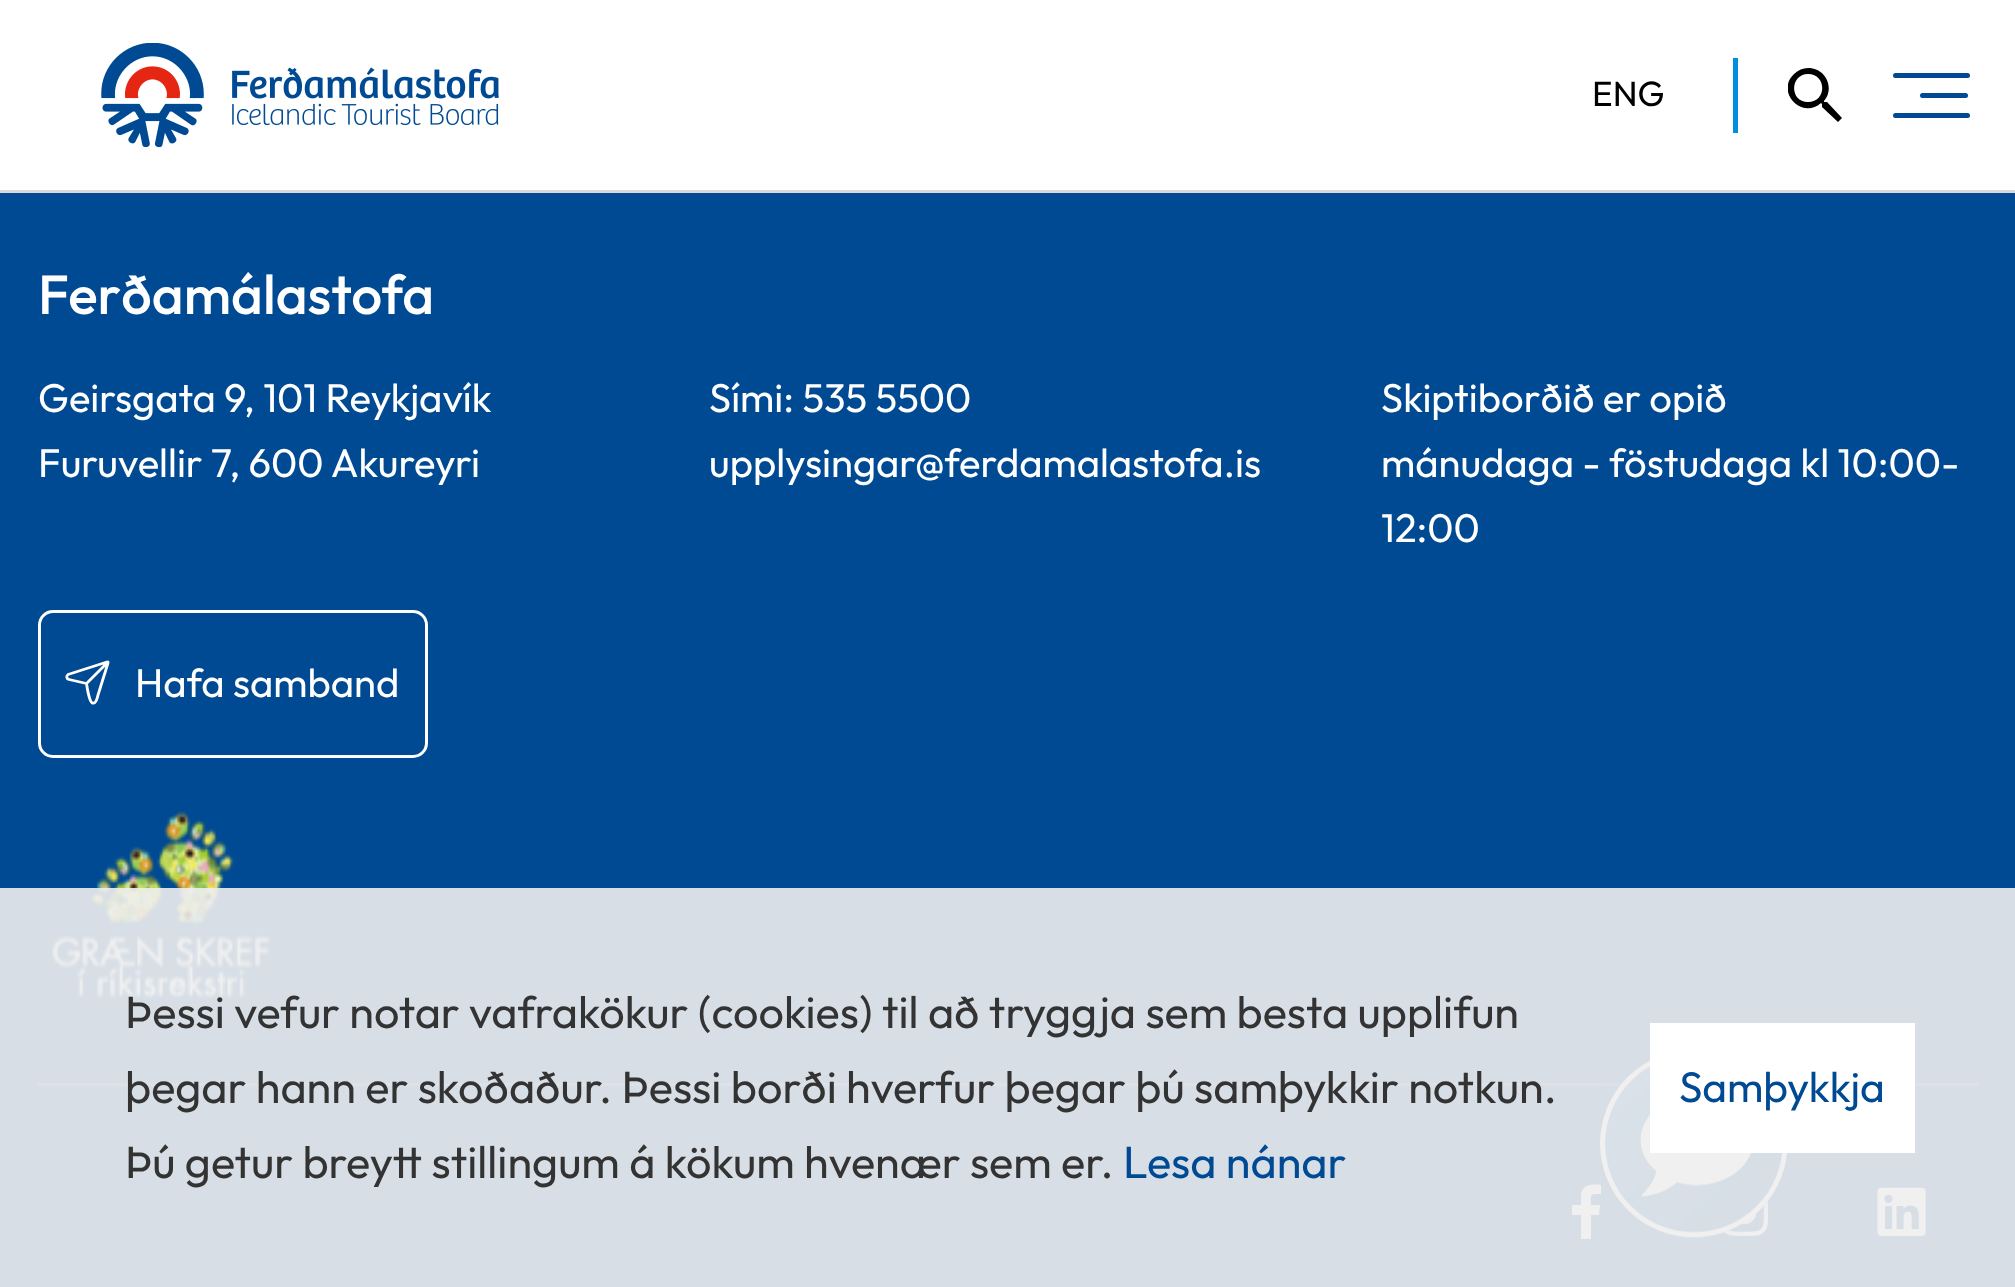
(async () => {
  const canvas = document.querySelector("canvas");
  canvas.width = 2015;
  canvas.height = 1287;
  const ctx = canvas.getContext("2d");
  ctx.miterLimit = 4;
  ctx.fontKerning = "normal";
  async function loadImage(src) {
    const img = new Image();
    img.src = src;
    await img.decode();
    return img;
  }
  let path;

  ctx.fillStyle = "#004a93";
  ctx.fillRect(0, 0, 2015, 1287);
  ctx.fillStyle = "#d9d9d9";
  ctx.fillRect(0, 190, 2015, 3);
  ctx.fillStyle = "#ffffff";
  ctx.fillRect(0, 0, 2015, 190);
  ctx.drawImage(await loadImage("img/1.png"), 101, 43, 398, 105);
  ctx.fillStyle = "#008fdf";
  ctx.fillRect(1733, 58, 5, 75);
  ctx.save();
  ctx.beginPath();
  ctx.rect(1788, 68, 55, 55);
  ctx.clip();
  ctx.fillStyle = "#000000";
  path = new Path2D("M1808 68C1826 68 1835 88 1824 101V102H1827L1842 118L1838 122L1822 107V104L1821 103C1802 120 1775 92 1794 74C1798 70 1803 68 1808 68ZM1808 74C1790 74 1789 102 1808 102C1827 102 1827 74 1808 74Z");
  ctx.fill(path);
  ctx.restore();
  ctx.fillStyle = "#004a93";
  ctx.beginPath();
  ctx.roundRect(1893, 73, 77, 5, 2.5);
  ctx.fill();
  ctx.beginPath();
  ctx.roundRect(1920, 93, 48, 5, 2.5);
  ctx.fill();
  ctx.beginPath();
  ctx.roundRect(1893, 113, 77, 5, 2.5);
  ctx.fill();
  ctx.beginPath();
  ctx.roundRect(39.5, 611.5, 387, 145, 13.5);
  ctx.strokeStyle = "#ffffff";
  ctx.lineWidth = 3;
  ctx.stroke();
  path = new Path2D("M69 679.5C66.5 679 66 676 68 674.5L107 662L108 663L98 695C97.5 696.5 96.5 704 92.5 703C89.5 702.5 87 687 86.5 683.5ZM108 662L86.5 683.5");
  ctx.lineWidth = 2.8;
  ctx.lineCap = "round";
  ctx.lineJoin = "round";
  ctx.stroke(path);
  ctx.drawImage(await loadImage("img/2.png"), 51, 811, 220, 187);
  ctx.fillStyle = "#336ea9";
  ctx.fillRect(38, 1083, 1940, 3);
  ctx.fillStyle = "#ffffff";
  path = new Path2D("M1581 1239V1215H1572V1205H1581V1194C1583 1184 1593 1184 1601 1185V1194C1589 1194 1591 1194 1591 1205H1600L1599 1215H1591V1239Z");
  ctx.fill(path);
  ctx.drawImage(await loadImage("img/3.png"), 1724, 1200, 45, 36);
  ctx.drawImage(await loadImage("img/4.png"), 1877, 1187, 49, 49);
  ctx.drawImage(await loadImage("img/5.png"), 1589, 1048, 210, 200);
  ctx.fillStyle = "rgba(238, 238, 238, 0.9)";
  ctx.fillRect(0, 888, 2015, 399);
  ctx.fillStyle = "#ffffff";
  ctx.fillRect(1650, 1023, 265, 130);
  ctx.font = "35px Outfit";
  ctx.fillStyle = "#000000";
  ctx.fillText("ENG", 1592, 106);
  ctx.font = "500 55px Outfit";
  ctx.fillStyle = "#ffffff";
  ctx.fillText("Ferðamálastofa", 38, 314);
  ctx.font = "40px Outfit";
  for (const [text, x, y] of [
    ["Geirsgata 9, 101 Reykjavík", 38, 412],
    ["Furuvellir 7, 600 Akureyri", 38, 477],
    ["Sími: 535 5500", 709, 412],
    ["upplysingar@ferdamalastofa.is", 709, 477],
    ["Skiptiborðið er opið", 1381, 412],
    ["mánudaga - föstudaga kl 10:00-", 1381, 477],
    ["12:00", 1381, 542],
    ["Hafa samband", 135, 697],
  ]) {
    ctx.fillText(text, x, y);
  }
  ctx.font = "45px Outfit";
  ctx.fillStyle = "#333333";
  for (const [text, x, y] of [
    ["Þessi vefur notar vafrakökur (cookies) til að tryggja sem besta upplifun", 125, 1028],
    ["þegar hann er skoðaður. Þessi borði hverfur þegar þú samþykkir notkun.", 125, 1103],
    ["Þú getur breytt stillingum á kökum hvenær sem er.", 125, 1178],
  ]) {
    ctx.fillText(text, x, y);
  }
  ctx.fillStyle = "#004a93";
  ctx.fillText("Lesa nánar", 1123, 1178);
  ctx.font = "42.5px Outfit";
  ctx.fillText("Samþykkja", 1679, 1102);
})();
